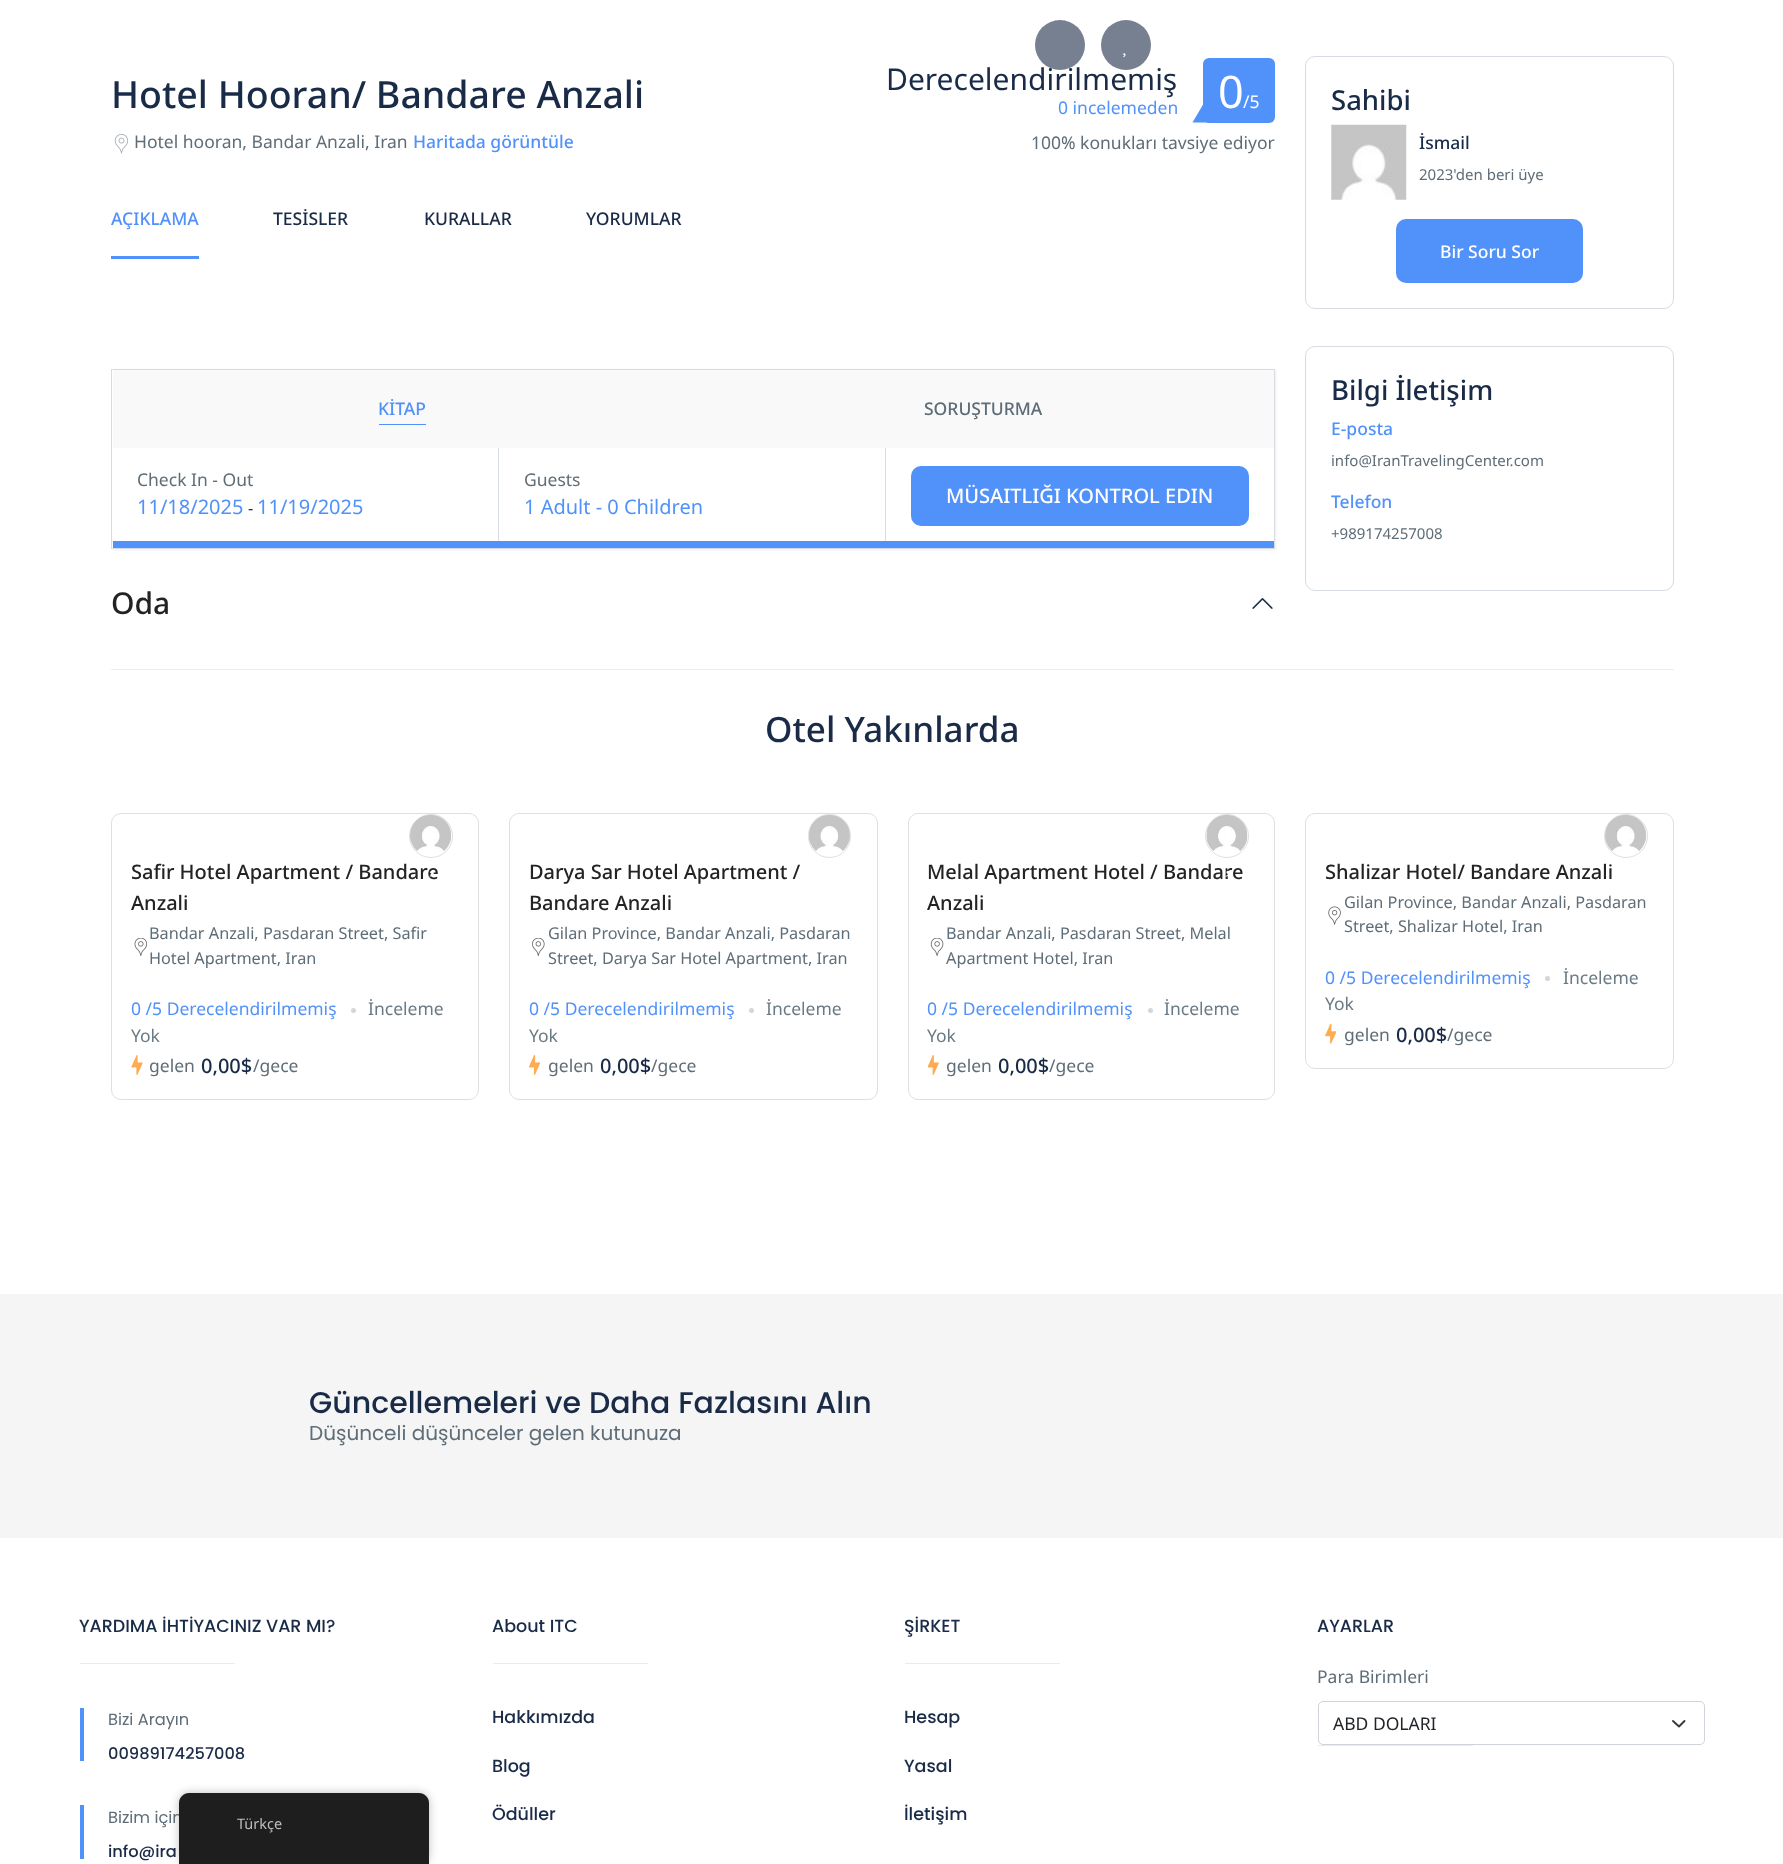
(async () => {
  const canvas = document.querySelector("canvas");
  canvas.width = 1783;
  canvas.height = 1864;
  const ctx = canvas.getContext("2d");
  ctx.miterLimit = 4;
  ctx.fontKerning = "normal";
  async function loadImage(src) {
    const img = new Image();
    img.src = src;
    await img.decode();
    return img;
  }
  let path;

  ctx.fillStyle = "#ffffff";
  ctx.fillRect(0, 0, 1783, 1864);
  ctx.drawImage(await loadImage("img/2.png"), 114, 134, 15, 20);
  ctx.fillStyle = "#5191fa";
  ctx.beginPath();
  ctx.roundRect(1203, 58, 72, 65, 6);
  ctx.fill();
  ctx.fillRect(111, 256, 88, 3);
  ctx.save();
  path = new Path2D("M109 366H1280V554H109ZM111 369H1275V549H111Z");
  ctx.clip(path, "evenodd");
  ctx.fillStyle = "#eeeeee";
  ctx.filter = "blur(1px)";
  ctx.beginPath();
  ctx.rect(113, 370, 1163, 180);
  ctx.fill();
  ctx.filter = "none";
  ctx.restore();
  ctx.strokeStyle = "#d7dce3";
  ctx.strokeRect(111.5, 369.5, 1163, 179);
  for (const [x, y, w, h, color] of [
    [113, 370, 1161, 78, "#f9f9f9"],
    [379, 424, 47, 1, "#5191fa"],
    [113, 541, 1161, 7, "#5191fa"],
    [498, 448, 1, 93, "#d7dce3"],
    [885, 448, 1, 93, "#d7dce3"],
  ]) {
    ctx.fillStyle = color;
    ctx.fillRect(x, y, w, h);
  }
  ctx.fillStyle = "#5191fa";
  ctx.beginPath();
  ctx.roundRect(911, 466, 338, 60, 10);
  ctx.fill();
  ctx.drawImage(await loadImage("img/3.png"), 1252, 598, 21, 11);
  ctx.beginPath();
  ctx.roundRect(1305.5, 56.5, 368, 252, 9.5);
  ctx.stroke();
  ctx.drawImage(await loadImage("img/4.png"), 1331, 124, 76, 76);
  ctx.beginPath();
  ctx.roundRect(1396, 219, 187, 64, 10);
  ctx.fill();
  ctx.beginPath();
  ctx.roundRect(1305.5, 346.5, 368, 244, 9.5);
  ctx.stroke();
  ctx.fillStyle = "#eaeef3";
  ctx.fillRect(111, 669, 1563, 1);
  ctx.beginPath();
  ctx.roundRect(111.5, 813.5, 367, 286, 9.5);
  ctx.strokeStyle = "#dfdfdf";
  ctx.stroke();
  ctx.beginPath();
  ctx.arc(431, 836, 21.5, 0, Math.PI * 2);
  ctx.stroke();
  ctx.drawImage(await loadImage("img/5.png"), 410, 815, 41, 37);
  ctx.drawImage(await loadImage("img/7.png"), 134, 938, 14, 18);
  ctx.fillStyle = "#d0d7dd";
  ctx.beginPath();
  ctx.arc(353.5, 1010.5, 2.5, 0, Math.PI * 2);
  ctx.fill();
  ctx.drawImage(await loadImage("img/8.png"), 131, 1055, 12, 20);
  ctx.beginPath();
  ctx.roundRect(509.5, 813.5, 368, 286, 9.5);
  ctx.stroke();
  ctx.beginPath();
  ctx.roundRect(808.5, 814.5, 42, 43, 21);
  ctx.stroke();
  ctx.drawImage(await loadImage("img/9.png"), 809, 815, 41, 37);
  ctx.drawImage(await loadImage("img/10.png"), 532, 938, 13, 18);
  ctx.beginPath();
  ctx.arc(751.5, 1010.5, 2.5, 0, Math.PI * 2);
  ctx.fill();
  ctx.drawImage(await loadImage("img/11.png"), 529, 1055, 12, 20);
  ctx.beginPath();
  ctx.roundRect(908.5, 813.5, 366, 286, 9.5);
  ctx.stroke();
  ctx.beginPath();
  ctx.arc(1227, 836, 21.5, 0, Math.PI * 2);
  ctx.stroke();
  ctx.drawImage(await loadImage("img/12.png"), 1206, 815, 42, 36);
  ctx.drawImage(await loadImage("img/14.png"), 930, 938, 14, 18);
  ctx.beginPath();
  ctx.arc(1150.5, 1010.5, 2.5, 0, Math.PI * 2);
  ctx.fill();
  ctx.drawImage(await loadImage("img/15.png"), 928, 1055, 11, 20);
  ctx.beginPath();
  ctx.roundRect(1305.5, 813.5, 368, 255, 9.5);
  ctx.stroke();
  ctx.beginPath();
  ctx.arc(1626, 836, 21.5, 0, Math.PI * 2);
  ctx.stroke();
  ctx.drawImage(await loadImage("img/16.png"), 1605, 815, 41, 37);
  ctx.drawImage(await loadImage("img/17.png"), 1328, 906, 13, 19);
  ctx.beginPath();
  ctx.arc(1547.5, 978.5, 2.5, 0, Math.PI * 2);
  ctx.fill();
  ctx.drawImage(await loadImage("img/18.png"), 1325, 1024, 12, 20);
  for (const [x, y, w, h, color] of [
    [0, 1294, 1783, 244, "#f5f5f5"],
    [80, 1663, 155, 1, "#ebebeb"],
    [80, 1708, 4, 53, "#5191fa"],
    [80, 1805, 4, 54, "#5191fa"],
    [493, 1663, 155, 1, "#ebebeb"],
    [905, 1663, 155, 1, "#ebebeb"],
  ]) {
    ctx.fillStyle = color;
    ctx.fillRect(x, y, w, h);
  }
  path = new Path2D("M1673 1721L1679 1726.5L1684.5 1721");
  ctx.strokeStyle = "#343a40";
  ctx.lineWidth = 1.9;
  ctx.lineCap = "round";
  ctx.lineJoin = "round";
  ctx.stroke(path);
  ctx.beginPath();
  ctx.roundRect(1318.5, 1701.5, 386, 43, 4.5);
  ctx.strokeStyle = "#ced4da";
  ctx.lineWidth = 1;
  ctx.lineJoin = "miter";
  ctx.stroke();
  ctx.fillRect(1318, 1745, 155, 1);
  ctx.fillStyle = "rgba(0, 0, 0, 0.25)";
  ctx.filter = "blur(5px)";
  ctx.beginPath();
  ctx.roundRect(179, 1793, 250, 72, 10);
  ctx.fill();
  ctx.filter = "none";
  ctx.font = "500 37.5px Noto Sans";
  ctx.fillStyle = "#1a2b48";
  ctx.fillText("Hotel Hooran/ Bandare Anzali", 111, 108);
  ctx.font = "17.5px Noto Sans";
  ctx.fillStyle = "#5e6d77";
  ctx.fillText("Hotel hooran, Bandar Anzali, Iran", 134, 148);
  ctx.font = "500 17.5px Noto Sans";
  ctx.fillStyle = "#5191fa";
  ctx.fillText("Haritada görüntüle", 413, 148);
  ctx.font = "30px Noto Sans";
  ctx.fillStyle = "#1a2b48";
  ctx.fillText("Derecelendirilmemiş", 886, 90);
  ctx.fillStyle = "#768091";
  ctx.beginPath();
  ctx.arc(1126, 45, 25, 0, Math.PI * 2);
  ctx.fill();
  ctx.drawImage(await loadImage("img/1.png"), 1123, 53, 3, 5);
  ctx.fillStyle = "rgba(26, 43, 72, 0.6)";
  ctx.beginPath();
  ctx.arc(1060, 45, 25, 0, Math.PI * 2);
  ctx.fill();
  ctx.font = "17.5px Noto Sans";
  ctx.fillStyle = "#5191fa";
  ctx.fillText("0 incelemeden", 1058, 114);
  ctx.font = "45px Noto Sans";
  ctx.fillStyle = "#ffffff";
  ctx.fillText("0", 1218, 108);
  ctx.fillStyle = "#5191fa";
  path = new Path2D("M1230 122.5H1192.5L1211 91Z");
  ctx.fill(path);
  ctx.font = "17.5px Noto Sans";
  ctx.fillStyle = "#ffffff";
  ctx.fillText("/5", 1243, 108);
  ctx.fillStyle = "#5e6d77";
  ctx.fillText("100% konukları tavsiye ediyor", 1031, 149);
  ctx.font = "500 17.5px Noto Sans";
  ctx.fillStyle = "#5191fa";
  ctx.fillText("AÇIKLAMA", 111, 225);
  ctx.fillStyle = "#1a2b48";
  for (const [text, x, y] of [
    ["TESİSLER", 273, 225],
    ["KURALLAR", 424, 225],
    ["YORUMLAR", 586, 225],
  ]) {
    ctx.fillText(text, x, y);
  }
  ctx.fillStyle = "#5191fa";
  ctx.fillText("KİTAP", 378, 415);
  ctx.fillStyle = "#5e6d77";
  ctx.fillText("SORUŞTURMA", 924, 415);
  ctx.font = "17.5px Noto Sans";
  ctx.fillText("Check In - Out", 137, 486);
  ctx.font = "20px Noto Sans";
  ctx.fillStyle = "#5191fa";
  ctx.fillText("11/18/2025", 137, 514);
  ctx.font = "16.25px Noto Sans";
  ctx.fillStyle = "#1a2b48";
  ctx.fillText("-", 248, 514);
  ctx.font = "20px Noto Sans";
  ctx.fillStyle = "#5191fa";
  ctx.fillText("11/19/2025", 257, 514);
  ctx.font = "17.5px Noto Sans";
  ctx.fillStyle = "#5e6d77";
  ctx.fillText("Guests", 524, 486);
  ctx.font = "20px Noto Sans";
  ctx.fillStyle = "#5191fa";
  ctx.fillText("1 Adult - 0 Children", 524, 514);
  ctx.font = "500 20px Noto Sans";
  ctx.fillStyle = "#ffffff";
  ctx.fillText("MÜSAITLIĞI KONTROL EDIN", 946, 503);
  ctx.font = "500 30px Noto Sans";
  ctx.fillStyle = "#232323";
  ctx.fillText("Oda", 111, 614);
  ctx.font = "500 27.5px Noto Sans";
  ctx.fillStyle = "#1a2b48";
  ctx.fillText("Sahibi", 1331, 110);
  ctx.font = "500 17.5px Noto Sans";
  ctx.fillText("İsmail", 1419, 149);
  ctx.font = "15px Noto Sans";
  ctx.fillStyle = "#5e6d77";
  ctx.fillText("2023'den beri üye", 1419, 180);
  ctx.font = "500 17.5px Noto Sans";
  ctx.fillStyle = "#ffffff";
  ctx.fillText("Bir Soru Sor", 1440, 258);
  ctx.font = "500 27.5px Noto Sans";
  ctx.fillStyle = "#1a2b48";
  ctx.fillText("Bilgi İletişim", 1331, 400);
  ctx.font = "500 17.5px Noto Sans";
  ctx.fillStyle = "#5191fa";
  ctx.fillText("E-posta", 1331, 435);
  ctx.font = "15px Noto Sans";
  ctx.fillStyle = "#5e6d77";
  ctx.fillText("info@IranTravelingCenter.com", 1331, 466);
  ctx.font = "500 17.5px Noto Sans";
  ctx.fillStyle = "#5191fa";
  ctx.fillText("Telefon", 1331, 508);
  ctx.font = "15px Noto Sans";
  ctx.fillStyle = "#5e6d77";
  ctx.fillText("+989174257008", 1331, 539);
  ctx.font = "500 35px Noto Sans";
  ctx.fillStyle = "#1a2b48";
  ctx.fillText("Otel Yakınlarda", 765, 742);
  ctx.font = "500 20px Noto Sans";
  ctx.fillStyle = "#232323";
  ctx.fillText("Safir Hotel Apartment / Bandare", 131, 879);
  ctx.drawImage(await loadImage("img/6.png"), 429, 871, 5, 6);
  ctx.fillText("Anzali", 131, 910);
  ctx.font = "16.25px Noto Sans";
  ctx.fillStyle = "#5e6d77";
  ctx.fillText("Bandar Anzali, Pasdaran Street, Safir", 149, 939);
  ctx.fillText("Hotel Apartment, Iran", 149, 964);
  ctx.font = "17.5px Noto Sans";
  ctx.fillStyle = "#5191fa";
  ctx.fillText("0 /5 Derecelendirilmemiş", 131, 1015);
  ctx.fillStyle = "#6a7a84";
  ctx.fillText("İnceleme", 368, 1015);
  ctx.fillText("Yok", 131, 1042);
  ctx.fillStyle = "#5e6d77";
  ctx.fillText("gelen", 149, 1072);
  ctx.font = "500 20px Noto Sans";
  ctx.fillStyle = "#1a2b48";
  ctx.fillText("0,00$", 201, 1073);
  ctx.font = "17.5px Noto Sans";
  ctx.fillStyle = "#5e6d77";
  ctx.fillText("/gece", 253, 1072);
  ctx.font = "500 20px Noto Sans";
  ctx.fillStyle = "#232323";
  ctx.fillText("Darya Sar Hotel Apartment /", 529, 879);
  ctx.fillText("Bandare Anzali", 529, 910);
  ctx.font = "16.25px Noto Sans";
  ctx.fillStyle = "#5e6d77";
  ctx.fillText("Gilan Province, Bandar Anzali, Pasdaran", 548, 939);
  ctx.fillText("Street, Darya Sar Hotel Apartment, Iran", 548, 964);
  ctx.font = "17.5px Noto Sans";
  ctx.fillStyle = "#5191fa";
  ctx.fillText("0 /5 Derecelendirilmemiş", 529, 1015);
  ctx.fillStyle = "#6a7a84";
  ctx.fillText("İnceleme", 766, 1015);
  ctx.fillText("Yok", 529, 1042);
  ctx.fillStyle = "#5e6d77";
  ctx.fillText("gelen", 548, 1072);
  ctx.font = "500 20px Noto Sans";
  ctx.fillStyle = "#1a2b48";
  ctx.fillText("0,00$", 600, 1073);
  ctx.font = "17.5px Noto Sans";
  ctx.fillStyle = "#5e6d77";
  ctx.fillText("/gece", 651, 1072);
  ctx.font = "500 20px Noto Sans";
  ctx.fillStyle = "#232323";
  ctx.fillText("Melal Apartment Hotel / Bandare", 927, 879);
  ctx.drawImage(await loadImage("img/13.png"), 1225, 870, 4, 7);
  ctx.fillText("Anzali", 927, 910);
  ctx.font = "16.25px Noto Sans";
  ctx.fillStyle = "#5e6d77";
  ctx.fillText("Bandar Anzali, Pasdaran Street, Melal", 946, 939);
  ctx.fillText("Apartment Hotel, Iran", 946, 964);
  ctx.font = "17.5px Noto Sans";
  ctx.fillStyle = "#5191fa";
  ctx.fillText("0 /5 Derecelendirilmemiş", 927, 1015);
  ctx.fillStyle = "#6a7a84";
  ctx.fillText("İnceleme", 1164, 1015);
  ctx.fillText("Yok", 927, 1042);
  ctx.fillStyle = "#5e6d77";
  ctx.fillText("gelen", 946, 1072);
  ctx.font = "500 20px Noto Sans";
  ctx.fillStyle = "#1a2b48";
  ctx.fillText("0,00$", 998, 1073);
  ctx.font = "17.5px Noto Sans";
  ctx.fillStyle = "#5e6d77";
  ctx.fillText("/gece", 1049, 1072);
  ctx.font = "500 20px Noto Sans";
  ctx.fillStyle = "#232323";
  ctx.fillText("Shalizar Hotel/ Bandare Anzali", 1325, 879);
  ctx.font = "16.25px Noto Sans";
  ctx.fillStyle = "#5e6d77";
  ctx.fillText("Gilan Province, Bandar Anzali, Pasdaran", 1344, 908);
  ctx.fillText("Street, Shalizar Hotel, Iran", 1344, 932);
  ctx.font = "17.5px Noto Sans";
  ctx.fillStyle = "#5191fa";
  ctx.fillText("0 /5 Derecelendirilmemiş", 1325, 984);
  ctx.fillStyle = "#6a7a84";
  ctx.fillText("İnceleme", 1563, 984);
  ctx.fillText("Yok", 1325, 1010);
  ctx.fillStyle = "#5e6d77";
  ctx.fillText("gelen", 1344, 1041);
  ctx.font = "500 20px Noto Sans";
  ctx.fillStyle = "#1a2b48";
  ctx.fillText("0,00$", 1396, 1042);
  ctx.font = "17.5px Noto Sans";
  ctx.fillStyle = "#5e6d77";
  ctx.fillText("/gece", 1447, 1041);
  ctx.font = "500 30px Poppins";
  ctx.fillStyle = "#1a2b48";
  ctx.fillText("Güncellemeleri ve Daha Fazlasını Alın", 309, 1413);
  ctx.font = "20px Poppins";
  ctx.fillStyle = "#5e6d77";
  ctx.fillText("Düşünceli düşünceler gelen kutunuza", 309, 1440);
  ctx.font = "500 17.5px Poppins";
  ctx.fillStyle = "#1a2b48";
  ctx.fillText("YARDIMA İHTİYACINIZ VAR MI?", 79, 1632);
  ctx.font = "16.25px Poppins";
  ctx.fillStyle = "#5e6d77";
  ctx.fillText("Bizi Arayın", 108, 1725);
  ctx.font = "500 16.25px Poppins";
  ctx.fillStyle = "#1a2b48";
  ctx.fillText("00989174257008", 108, 1759);
  ctx.font = "16.25px Poppins";
  ctx.fillStyle = "#5e6d77";
  ctx.fillText("Bizim için", 108, 1823);
  ctx.font = "500 16.25px Poppins";
  ctx.fillStyle = "#1a2b48";
  ctx.fillText("info@ira", 108, 1857);
  ctx.font = "500 17.5px Poppins";
  for (const [text, x, y] of [
    ["About ITC", 492, 1632],
    ["Hakkımızda", 492, 1723],
    ["Blog", 492, 1772],
    ["Ödüller", 492, 1820],
    ["ŞİRKET", 904, 1632],
    ["Hesap", 904, 1723],
    ["Yasal", 904, 1772],
    ["İletişim", 904, 1820],
    ["AYARLAR", 1317, 1632],
  ]) {
    ctx.fillText(text, x, y);
  }
  ctx.font = "17.5px Noto Sans";
  ctx.fillStyle = "#5e6d77";
  ctx.fillText("Para Birimleri", 1317, 1683);
  ctx.fillStyle = "#212529";
  ctx.fillText("ABD DOLARI", 1333, 1730);
  ctx.fillStyle = "#1e1e1e";
  path = new Path2D("M189 1793H419C424.5 1793 429 1797.5 429 1803V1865H179V1803C179 1797.5 183.5 1793 189 1793Z");
  ctx.fill(path);
  ctx.font = "14.5px Noto Sans";
  ctx.fillStyle = "#bdbdbd";
  ctx.fillText("Türkçe", 237, 1829);
})();
